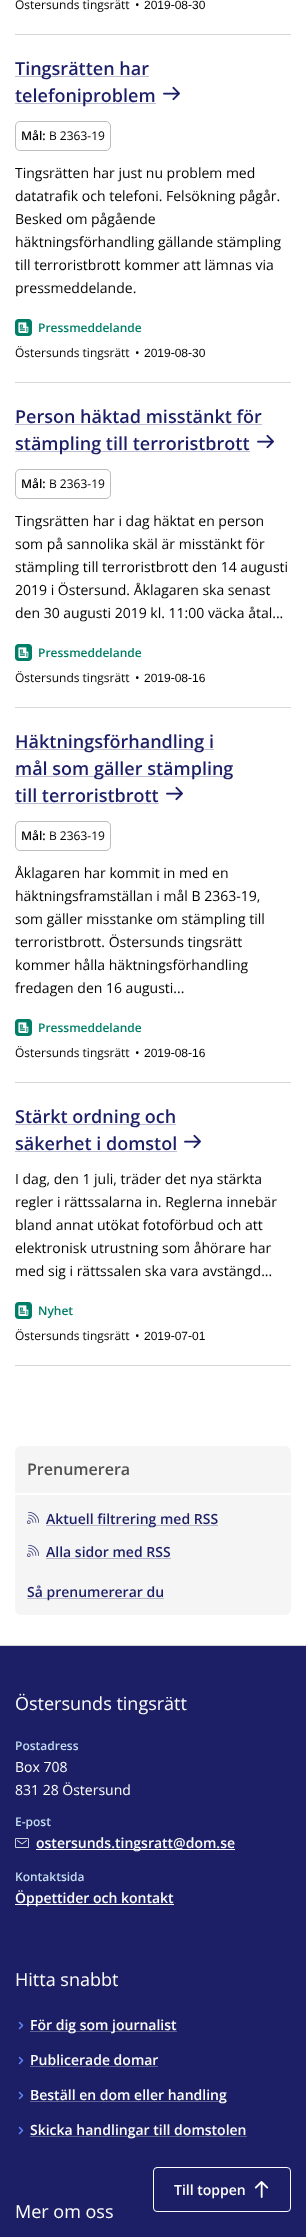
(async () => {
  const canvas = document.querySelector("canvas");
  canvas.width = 306;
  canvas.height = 2237;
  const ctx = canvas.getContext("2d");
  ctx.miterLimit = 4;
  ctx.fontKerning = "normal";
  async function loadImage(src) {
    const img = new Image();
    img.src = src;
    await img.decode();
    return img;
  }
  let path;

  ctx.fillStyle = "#ffffff";
  ctx.fillRect(0, 0, 306, 2237);
  for (const [x, y, w, h, color] of [
    [15, 34, 276, 1, "#d6d7d9"],
    [15, 76, 134, 1, "#bbbcd1"],
    [15, 103, 141, 1, "#bbbcd1"],
  ]) {
    ctx.fillStyle = color;
    ctx.fillRect(x, y, w, h);
  }
  ctx.drawImage(await loadImage("img/1.png"), 163, 86, 17, 15);
  ctx.beginPath();
  ctx.roundRect(15.5, 121.5, 95, 29, 4.5);
  ctx.strokeStyle = "#bdbebf";
  ctx.stroke();
  ctx.drawImage(await loadImage("img/2.png"), 15, 319, 17, 17);
  for (const [x, y, w, h, color] of [
    [15, 382, 276, 1, "#d6d7d9"],
    [15, 424, 247, 1, "#bbbcd1"],
    [15, 451, 235, 1, "#bbbcd1"],
  ]) {
    ctx.fillStyle = color;
    ctx.fillRect(x, y, w, h);
  }
  ctx.drawImage(await loadImage("img/1.png"), 257, 434, 17, 15);
  ctx.beginPath();
  ctx.roundRect(15.5, 469.5, 95, 29, 4.5);
  ctx.stroke();
  ctx.drawImage(await loadImage("img/2.png"), 15, 644, 17, 17);
  for (const [x, y, w, h, color] of [
    [15, 707, 276, 1, "#d6d7d9"],
    [15, 749, 199, 1, "#bbbcd1"],
    [15, 776, 218, 1, "#bbbcd1"],
    [15, 803, 144, 1, "#bbbcd1"],
  ]) {
    ctx.fillStyle = color;
    ctx.fillRect(x, y, w, h);
  }
  ctx.drawImage(await loadImage("img/1.png"), 166, 786, 17, 15);
  ctx.beginPath();
  ctx.roundRect(15.5, 821.5, 95, 29, 4.5);
  ctx.stroke();
  ctx.drawImage(await loadImage("img/2.png"), 15, 1019, 17, 17);
  for (const [x, y, w, h, color] of [
    [15, 1082, 276, 1, "#d6d7d9"],
    [15, 1124, 161, 1, "#bbbcd1"],
    [15, 1151, 162, 1, "#bbbcd1"],
  ]) {
    ctx.fillStyle = color;
    ctx.fillRect(x, y, w, h);
  }
  ctx.drawImage(await loadImage("img/1.png"), 184, 1134, 17, 15);
  ctx.drawImage(await loadImage("img/2.png"), 15, 1302, 17, 17);
  ctx.fillStyle = "#d6d7d9";
  ctx.fillRect(15, 1365, 276, 1);
  ctx.fillStyle = "#f5f5f5";
  ctx.beginPath();
  ctx.roundRect(15, 1446, 276, 169, 6);
  ctx.fill();
  ctx.fillStyle = "#ffffff";
  ctx.fillRect(15, 1493, 276, 2);
  ctx.drawImage(await loadImage("img/3.png"), 27, 1512, 12, 12);
  ctx.fillStyle = "#b4b5ca";
  ctx.fillRect(46, 1525, 172, 1);
  ctx.drawImage(await loadImage("img/3.png"), 27, 1545, 12, 12);
  for (const [x, y, w, h, color] of [
    [46, 1558, 125, 1, "#b4b5ca"],
    [27, 1598, 137, 1, "#b4b5ca"],
    [0, 1646, 306, 591, "#1c1f66"],
    [0, 1645, 306, 1, "#d6d7d9"],
  ]) {
    ctx.fillStyle = color;
    ctx.fillRect(x, y, w, h);
  }
  ctx.drawImage(await loadImage("img/4.png"), 15, 1838, 14, 10);
  ctx.fillStyle = "#ffffff";
  ctx.fillRect(36, 1849, 199, 1);
  ctx.fillRect(15, 1904, 159, 1);
  path = new Path2D("M19.5 2028.5L22.5 2025.5L19.5 2022.5M19.5 2063.5L22.5 2060.5L19.5 2057.5");
  ctx.strokeStyle = "#6088fa";
  ctx.lineWidth = 1.5;
  ctx.lineCap = "round";
  ctx.lineJoin = "round";
  ctx.stroke(path);
  ctx.fillStyle = "#606294";
  ctx.fillRect(30, 2031, 147, 1);
  ctx.fillRect(30, 2066, 128, 1);
  path = new Path2D("M19.5 2098.5L22.5 2095.5L19.5 2092.5M19.5 2133.5L22.5 2130.5L19.5 2127.5");
  ctx.stroke(path);
  ctx.fillRect(30, 2101, 197, 1);
  ctx.fillRect(30, 2136, 217, 1);
  ctx.beginPath();
  ctx.roundRect(153.5, 2167.5, 137, 44, 3.5);
  ctx.strokeStyle = "#ffffff";
  ctx.lineWidth = 1;
  ctx.lineJoin = "miter";
  ctx.stroke();
  ctx.drawImage(await loadImage("img/5.png"), 254, 2181, 15, 17);
  ctx.font = "12px Open Sans";
  ctx.fillStyle = "#000000";
  ctx.fillText("Östersunds tingsrätt", 15, 9);
  ctx.fillText("•", 135, 9);
  ctx.font = "12px Liberation Sans";
  ctx.fillText("2019‑08‑30", 144, 9);
  ctx.font = "600 18px Open Sans";
  ctx.fillStyle = "#1c1f66";
  ctx.fillText("Tingsrätten har", 15, 75);
  ctx.fillText("telefoniproblem", 15, 102);
  ctx.font = "600 12px Open Sans";
  ctx.fillStyle = "#000000";
  ctx.fillText("Mål:", 21, 140);
  ctx.font = "12px Open Sans";
  ctx.fillText("B 2363-19", 49, 140);
  ctx.font = "14px Open Sans";
  for (const [text, x, y] of [
    ["Tingsrätten har just nu problem med", 15, 178],
    ["datatrafik och telefoni. Felsökning pågår.", 15, 201],
    ["Besked om pågående", 15, 224],
    ["häktningsförhandling gällande stämpling", 15, 247],
    ["till terroristbrott kommer att lämnas via", 15, 270],
    ["pressmeddelande.", 15, 293],
  ]) {
    ctx.fillText(text, x, y);
  }
  ctx.font = "600 12px Open Sans";
  ctx.fillStyle = "#007e68";
  ctx.fillText("Pressmeddelande", 38, 332);
  ctx.font = "12px Open Sans";
  ctx.fillStyle = "#000000";
  ctx.fillText("Östersunds tingsrätt", 15, 357);
  ctx.fillText("•", 135, 357);
  ctx.font = "12px Liberation Sans";
  ctx.fillText("2019‑08‑30", 144, 357);
  ctx.font = "600 18px Open Sans";
  ctx.fillStyle = "#1c1f66";
  ctx.fillText("Person häktad misstänkt för", 15, 423);
  ctx.fillText("stämpling till terroristbrott", 15, 450);
  ctx.font = "600 12px Open Sans";
  ctx.fillStyle = "#000000";
  ctx.fillText("Mål:", 21, 488);
  ctx.font = "12px Open Sans";
  ctx.fillText("B 2363-19", 49, 488);
  ctx.font = "14px Open Sans";
  for (const [text, x, y] of [
    ["Tingsrätten har i dag häktat en person", 15, 526],
    ["som på sannolika skäl är misstänkt för", 15, 549],
    ["stämpling till terroristbrott den 14 augusti", 15, 572],
    ["2019 i Östersund. Åklagaren ska senast", 15, 595],
    ["den 30 augusti 2019 kl. 11:00 väcka åtal...", 15, 618],
  ]) {
    ctx.fillText(text, x, y);
  }
  ctx.font = "600 12px Open Sans";
  ctx.fillStyle = "#007e68";
  ctx.fillText("Pressmeddelande", 38, 657);
  ctx.font = "12px Open Sans";
  ctx.fillStyle = "#000000";
  ctx.fillText("Östersunds tingsrätt", 15, 682);
  ctx.fillText("•", 135, 682);
  ctx.font = "12px Liberation Sans";
  ctx.fillText("2019‑08‑16", 144, 682);
  ctx.font = "600 18px Open Sans";
  ctx.fillStyle = "#1c1f66";
  for (const [text, x, y] of [
    ["Häktningsförhandling i", 15, 748],
    ["mål som gäller stämpling", 15, 775],
    ["till terroristbrott", 15, 802],
  ]) {
    ctx.fillText(text, x, y);
  }
  ctx.font = "600 12px Open Sans";
  ctx.fillStyle = "#000000";
  ctx.fillText("Mål:", 21, 840);
  ctx.font = "12px Open Sans";
  ctx.fillText("B 2363-19", 49, 840);
  ctx.font = "14px Open Sans";
  for (const [text, x, y] of [
    ["Åklagaren har kommit in med en", 15, 878],
    ["häktningsframställan i mål B 2363-19,", 15, 901],
    ["som gäller misstanke om stämpling till", 15, 924],
    ["terroristbrott. Östersunds tingsrätt", 15, 947],
    ["kommer hålla häktningsförhandling", 15, 970],
    ["fredagen den 16 augusti...", 15, 993],
  ]) {
    ctx.fillText(text, x, y);
  }
  ctx.font = "600 12px Open Sans";
  ctx.fillStyle = "#007e68";
  ctx.fillText("Pressmeddelande", 38, 1032);
  ctx.font = "12px Open Sans";
  ctx.fillStyle = "#000000";
  ctx.fillText("Östersunds tingsrätt", 15, 1057);
  ctx.fillText("•", 135, 1057);
  ctx.font = "12px Liberation Sans";
  ctx.fillText("2019‑08‑16", 144, 1057);
  ctx.font = "600 18px Open Sans";
  ctx.fillStyle = "#1c1f66";
  ctx.fillText("Stärkt ordning och", 15, 1123);
  ctx.fillText("säkerhet i domstol", 15, 1150);
  ctx.font = "14px Open Sans";
  ctx.fillStyle = "#000000";
  for (const [text, x, y] of [
    ["I dag, den 1 juli, träder det nya stärkta", 15, 1184],
    ["regler i rättssalarna in. Reglerna innebär", 15, 1207],
    ["bland annat utökat fotoförbud och att", 15, 1230],
    ["elektronisk utrustning som åhörare har", 15, 1253],
    ["med sig i rättssalen ska vara avstängd...", 15, 1276],
  ]) {
    ctx.fillText(text, x, y);
  }
  ctx.font = "600 12px Open Sans";
  ctx.fillStyle = "#007e68";
  ctx.fillText("Nyhet", 38, 1315);
  ctx.font = "12px Open Sans";
  ctx.fillStyle = "#000000";
  ctx.fillText("Östersunds tingsrätt", 15, 1340);
  ctx.fillText("•", 135, 1340);
  ctx.font = "12px Liberation Sans";
  ctx.fillText("2019‑07‑01", 144, 1340);
  ctx.font = "600 16px Open Sans";
  ctx.fillStyle = "#505051";
  ctx.fillText("Prenumerera", 27, 1475);
  ctx.font = "600 14px Open Sans";
  ctx.fillStyle = "#1c1f66";
  for (const [text, x, y] of [
    ["Aktuell filtrering med RSS", 46, 1524],
    ["Alla sidor med RSS", 46, 1557],
    ["Så prenumererar du", 27, 1597],
  ]) {
    ctx.fillText(text, x, y);
  }
  ctx.font = "18px Open Sans";
  ctx.fillStyle = "#ffffff";
  ctx.fillText("Östersunds tingsrätt", 15, 1710);
  ctx.font = "600 12px Open Sans";
  ctx.fillStyle = "#c2dcf2";
  ctx.fillText("Postadress", 15, 1750);
  ctx.font = "14px Open Sans";
  ctx.fillStyle = "#ffffff";
  ctx.fillText("Box 708", 15, 1772);
  ctx.fillText("831 28 Östersund", 15, 1795);
  ctx.font = "600 12px Open Sans";
  ctx.fillStyle = "#c2dcf2";
  ctx.fillText("E-post", 15, 1826);
  ctx.font = "600 14px Open Sans";
  ctx.fillStyle = "#ffffff";
  ctx.fillText("ostersunds.tingsratt@dom.se", 36, 1848);
  ctx.font = "600 12px Open Sans";
  ctx.fillStyle = "#c2dcf2";
  ctx.fillText("Kontaktsida", 15, 1881);
  ctx.font = "600 14px Open Sans";
  ctx.fillStyle = "#ffffff";
  ctx.fillText("Öppettider och kontakt", 15, 1903);
  ctx.font = "18px Open Sans";
  ctx.fillText("Hitta snabbt", 15, 1986);
  ctx.font = "600 14px Open Sans";
  for (const [text, x, y] of [
    ["För dig som journalist", 30, 2030],
    ["Publicerade domar", 30, 2065],
    ["Beställ en dom eller handling", 30, 2100],
    ["Skicka handlingar till domstolen", 30, 2135],
  ]) {
    ctx.fillText(text, x, y);
  }
  ctx.font = "18px Open Sans";
  ctx.fillText("Mer om oss", 15, 2218);
  ctx.font = "600 14px Open Sans";
  ctx.fillText("Till toppen", 174, 2195);
})();
